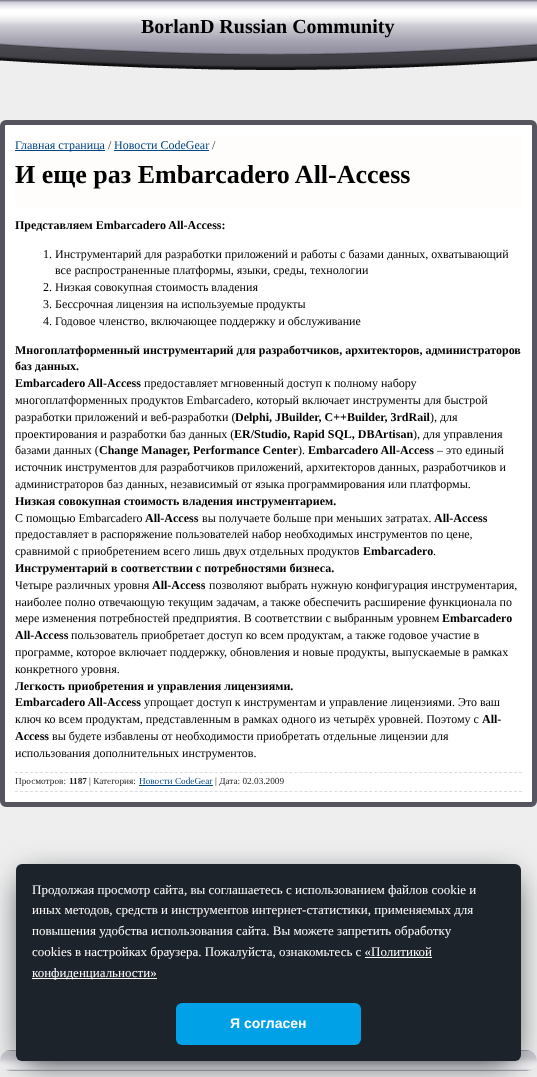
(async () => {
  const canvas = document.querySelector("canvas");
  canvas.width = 537;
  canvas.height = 1077;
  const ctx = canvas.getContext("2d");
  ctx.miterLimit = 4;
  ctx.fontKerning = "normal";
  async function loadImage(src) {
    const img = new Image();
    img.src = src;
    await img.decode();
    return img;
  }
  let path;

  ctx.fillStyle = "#eeeeee";
  ctx.fillRect(0, 0, 537, 1077);
  ctx.drawImage(await loadImage("img/1.png"), 0, 0, 537, 70);
  ctx.fillStyle = "#ffffff";
  ctx.beginPath();
  ctx.roundRect(2.5, 122.5, 532, 682, 3.5);
  ctx.fill();
  ctx.strokeStyle = "#56545f";
  ctx.lineWidth = 5;
  ctx.stroke();
  for (const [x, y, w, h, color] of [
    [15, 135, 507, 72, "#fefdfc"],
    [15, 150, 90, 1, "#004585"],
    [114, 150, 95, 1, "#004585"],
  ]) {
    ctx.fillStyle = color;
    ctx.fillRect(x, y, w, h);
  }
  path = new Path2D("M15 772.5H522");
  ctx.strokeStyle = "#dddddd";
  ctx.lineWidth = 1;
  ctx.setLineDash([3, 1.99]);
  ctx.stroke(path);
  path = new Path2D("M15 791.5H522");
  ctx.stroke(path);
  ctx.fillRect(139, 785, 74, 1);
  ctx.drawImage(await loadImage("img/2.png"), 0, 1050, 537, 21);
  ctx.fillStyle = "#1c232b";
  ctx.filter = "blur(16px)";
  ctx.beginPath();
  ctx.rect(24, 880, 489, 181);
  ctx.fill();
  ctx.filter = "none";
  ctx.beginPath();
  ctx.roundRect(16, 864, 505, 197, 6);
  ctx.fill();
  ctx.fillStyle = "#ffffff";
  ctx.fillRect(365, 957, 67, 1);
  ctx.fillRect(32, 978, 125, 1);
  ctx.fillStyle = "#00a1e7";
  ctx.beginPath();
  ctx.roundRect(176, 1003, 185, 42, 6);
  ctx.fill();
  ctx.font = "bold 20px Liberation Serif";
  ctx.fillStyle = "#000000";
  ctx.fillText("BorlanD Russian Сommunity", 141, 33);
  ctx.font = "12px Liberation Serif";
  ctx.fillStyle = "#004585";
  ctx.fillText("Главная страница", 15, 149);
  ctx.fillStyle = "#323232";
  ctx.fillText("/", 108, 149);
  ctx.fillStyle = "#004585";
  ctx.fillText("Новости CodeGear", 114, 149);
  ctx.fillStyle = "#323232";
  ctx.fillText("/", 212, 149);
  ctx.font = "bold 26px Liberation Serif";
  ctx.fillStyle = "#000000";
  ctx.fillText("И еще раз Embarcadero All-Access", 15, 183);
  ctx.font = "bold 12px Liberation Serif";
  ctx.fillText("Представляем Embarcadero All-Access:", 15, 229);
  ctx.font = "12px Liberation Serif";
  for (const [text, x, y] of [
    ["1. Инструментарий для разработки приложений и работы с базами данных, охватывающий", 43, 258],
    ["все распространенные платформы, языки, среды, технологии", 55, 274],
    ["2. Низкая совокупная стоимость владения", 43, 291],
    ["3. Бессрочная лицензия на используемые продукты", 43, 308],
    ["4. Годовое членство, включающее поддержку и обслуживание", 43, 325],
  ]) {
    ctx.fillText(text, x, y);
  }
  ctx.font = "bold 12px Liberation Serif";
  for (const [text, x, y] of [
    ["Многоплатформенный инструментарий для разработчиков, архитекторов, администраторов", 15, 354],
    ["баз данных.", 15, 370],
    ["Embarcadero All-Access", 15, 387],
  ]) {
    ctx.fillText(text, x, y);
  }
  ctx.font = "12px Liberation Serif";
  for (const [text, x, y] of [
    ["предоставляет мгновенный доступ к полному набору", 144, 387],
    ["многоплатформенных продуктов Embarcadero, который включает инструменты для быстрой", 15, 404],
    ["разработки приложений и веб-разработки (", 15, 421],
  ]) {
    ctx.fillText(text, x, y);
  }
  ctx.font = "bold 12px Liberation Serif";
  ctx.fillText("Delphi, JBuilder, C++Builder, 3rdRail", 235, 421);
  ctx.font = "12px Liberation Serif";
  ctx.fillText("), для", 430, 421);
  ctx.fillText("проектирования и разработки баз данных (", 15, 438);
  ctx.font = "bold 12px Liberation Serif";
  ctx.fillText("ER/Studio, Rapid SQL, DBArtisan", 234, 438);
  ctx.font = "12px Liberation Serif";
  ctx.fillText("), для управления", 413, 438);
  ctx.fillText("базами данных (", 15, 454);
  ctx.font = "bold 12px Liberation Serif";
  ctx.fillText("Change Manager, Performance Center", 99, 454);
  ctx.font = "12px Liberation Serif";
  ctx.fillText(").", 298, 454);
  ctx.font = "bold 12px Liberation Serif";
  ctx.fillText("Embarcadero All-Access", 308, 454);
  ctx.font = "12px Liberation Serif";
  for (const [text, x, y] of [
    ["– это единый", 437, 454],
    ["источник инструментов для разработчиков приложений, архитекторов данных, разработчиков и", 15, 471],
    ["администраторов баз данных, независимый от языка программирования или платформы.", 15, 488],
  ]) {
    ctx.fillText(text, x, y);
  }
  ctx.font = "bold 12px Liberation Serif";
  ctx.fillText("Низкая совокупная стоимость владения инструментарием.", 15, 505);
  ctx.font = "12px Liberation Serif";
  ctx.fillText("С помощью Embarcadero", 15, 522);
  ctx.font = "bold 12px Liberation Serif";
  ctx.fillText("All-Access", 145, 522);
  ctx.font = "12px Liberation Serif";
  ctx.fillText("вы получаете больше при меньших затратах.", 202, 522);
  ctx.font = "bold 12px Liberation Serif";
  ctx.fillText("All-Access", 434, 522);
  ctx.font = "12px Liberation Serif";
  ctx.fillText("предоставляет в распоряжение пользователей набор необходимых инструментов по цене,", 15, 538);
  ctx.fillText("сравнимой с приобретением всего лишь двух отдельных продуктов", 15, 555);
  ctx.font = "bold 12px Liberation Serif";
  ctx.fillText("Embarcadero", 363, 555);
  ctx.font = "12px Liberation Serif";
  ctx.fillText(".", 433, 555);
  ctx.font = "bold 12px Liberation Serif";
  ctx.fillText("Инструментарий в соответствии с потребностями бизнеса.", 15, 572);
  ctx.font = "12px Liberation Serif";
  ctx.fillText("Четыре различных уровня", 15, 589);
  ctx.font = "bold 12px Liberation Serif";
  ctx.fillText("All-Access", 152, 589);
  ctx.font = "12px Liberation Serif";
  for (const [text, x, y] of [
    ["позволяют выбрать нужную конфигурация инструментария,", 209, 589],
    ["наиболее полно отвечающую текущим задачам, а также обеспечить расширение функционала по", 15, 606],
    ["мере изменения потребностей предприятия. В соответствии с выбранным уровнем", 15, 622],
  ]) {
    ctx.fillText(text, x, y);
  }
  ctx.font = "bold 12px Liberation Serif";
  ctx.fillText("Embarcadero", 442, 622);
  ctx.fillText("All-Access", 15, 639);
  ctx.font = "12px Liberation Serif";
  for (const [text, x, y] of [
    ["пользователь приобретает доступ ко всем продуктам, а также годовое участие в", 71, 639],
    ["программе, которое включает поддержку, обновления и новые продукты, выпускаемые в рамках", 15, 656],
    ["конкретного уровня.", 15, 673],
  ]) {
    ctx.fillText(text, x, y);
  }
  ctx.font = "bold 12px Liberation Serif";
  ctx.fillText("Легкость приобретения и управления лицензиями.", 15, 690);
  ctx.fillText("Embarcadero All-Access", 15, 706);
  ctx.font = "12px Liberation Serif";
  ctx.fillText("упрощает доступ к инструментам и управление лицензиями. Это ваш", 144, 706);
  ctx.fillText("ключ ко всем продуктам, представленным в рамках одного из четырёх уровней. Поэтому с", 15, 723);
  ctx.font = "bold 12px Liberation Serif";
  ctx.fillText("All-", 482, 723);
  ctx.fillText("Access", 15, 740);
  ctx.font = "12px Liberation Serif";
  ctx.fillText("вы будете избавлены от необходимости приобретать отдельные лицензии для", 52, 740);
  ctx.fillText("использования дополнительных инструментов.", 15, 757);
  ctx.font = "9.25px Liberation Serif";
  ctx.fillStyle = "#1a1a1a";
  ctx.fillText("Просмотров:", 15, 784);
  ctx.font = "bold 9.25px Liberation Serif";
  ctx.fillText("1187", 69, 784);
  ctx.font = "9.25px Liberation Serif";
  ctx.fillText("| Категория:", 89, 784);
  ctx.fillStyle = "#004585";
  ctx.fillText("Новости CodeGear", 139, 784);
  ctx.fillStyle = "#1a1a1a";
  ctx.fillText("| Дата: 02.03.2009", 215, 784);
  ctx.font = "13px Liberation Serif";
  ctx.fillStyle = "#ffffff";
  for (const [text, x, y] of [
    ["Продолжая просмотр сайта, вы соглашаетесь с использованием файлов cookie и", 32, 894],
    ["иных методов, средств и инструментов интернет-статистики, применяемых для", 32, 914],
    ["повышения удобства использования сайта. Вы можете запретить обработку", 32, 935],
    ["cookies в настройках браузера. Пожалуйста, ознакомьтесь с «Политикой", 32, 956],
    ["конфиденциальности»", 32, 977],
  ]) {
    ctx.fillText(text, x, y);
  }
  ctx.font = "bold 14px Liberation Sans";
  ctx.fillText("Я согласен", 230, 1028);
})();
